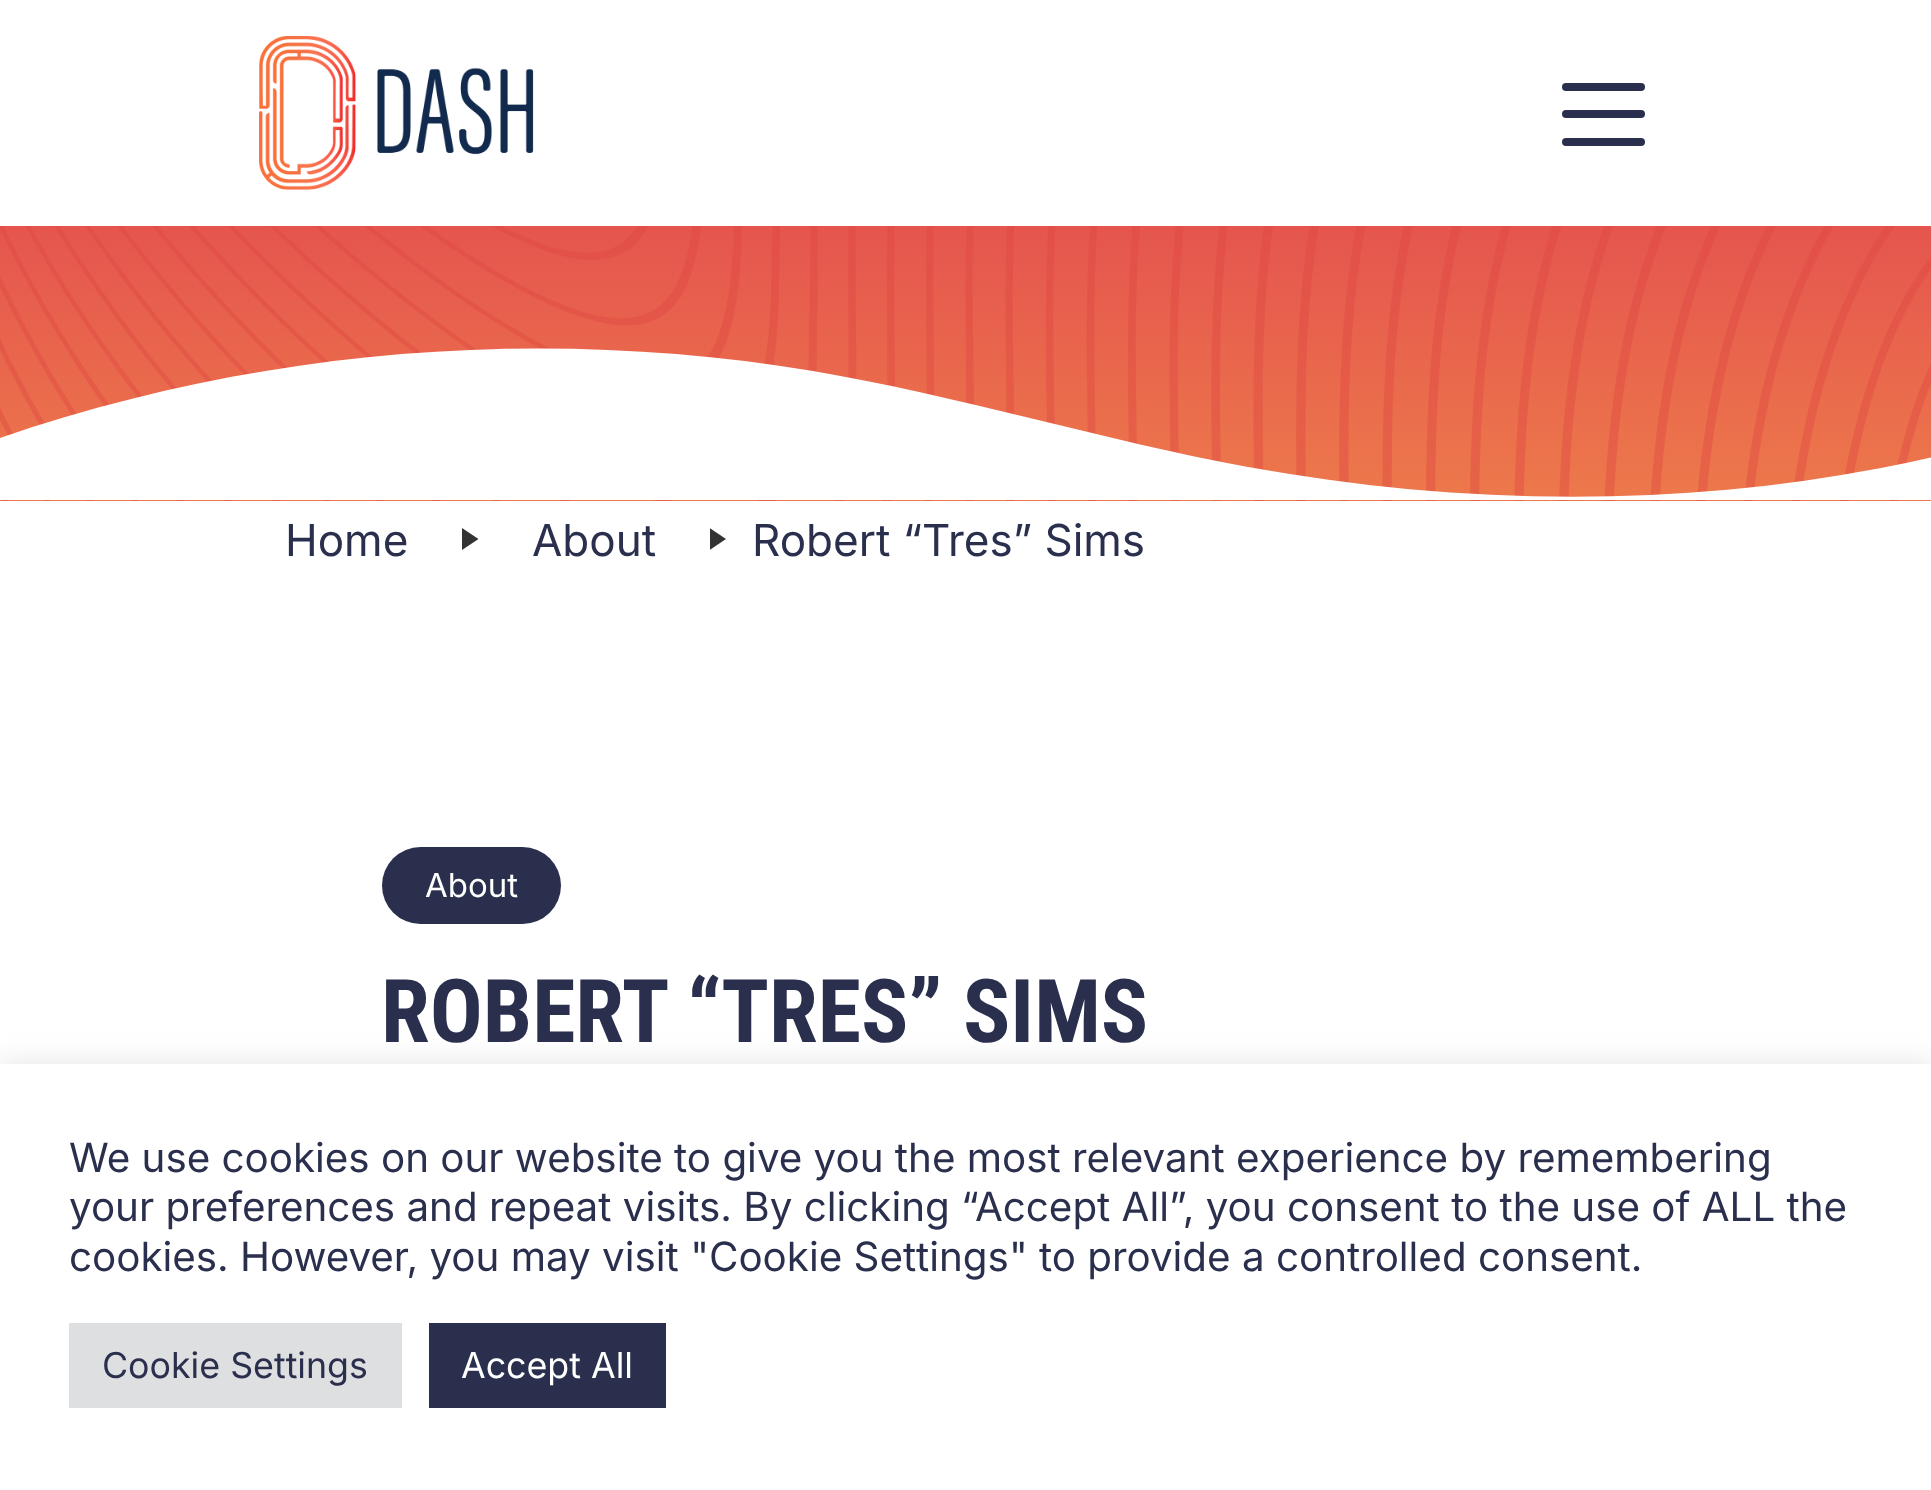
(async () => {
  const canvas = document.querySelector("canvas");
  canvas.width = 1931;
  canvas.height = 1490;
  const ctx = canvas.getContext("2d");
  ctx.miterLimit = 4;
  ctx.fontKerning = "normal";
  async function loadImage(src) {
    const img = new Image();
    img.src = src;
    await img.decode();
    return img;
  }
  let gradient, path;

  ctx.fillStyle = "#ffffff";
  ctx.fillRect(0, 0, 1931, 1490);
  ctx.drawImage(await loadImage("img/1.png"), 259, 36, 275, 154);
  ctx.fillStyle = "#2a2f4d";
  ctx.beginPath();
  ctx.roundRect(1562, 83, 83, 8, 4);
  ctx.fill();
  ctx.beginPath();
  ctx.roundRect(1562, 110, 83, 8, 4);
  ctx.fill();
  ctx.beginPath();
  ctx.roundRect(1562, 138, 83, 8, 4);
  ctx.fill();
  gradient = ctx.createLinearGradient(967, 225, 967, 501);
  gradient.addColorStop(0, "#e5554e");
  gradient.addColorStop(1, "#ed794b");
  ctx.fillStyle = gradient;
  ctx.fillRect(0, 226, 1931, 275);
  ctx.drawImage(await loadImage("img/2.png"), 0, 226, 1931, 275);
  ctx.fillStyle = "#ffffff";
  path = new Path2D("M813 371C960 396 1102 440 1248 467C1456 505 1673 508 1881 468C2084 429 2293 336 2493 288C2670 245 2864 228 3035 281V500H0V438C259 349 540 326 813 371Z");
  ctx.fill(path);
  ctx.drawImage(await loadImage("img/3.png"), 462, 528, 17, 22);
  ctx.drawImage(await loadImage("img/4.png"), 710, 528, 16, 22);
  ctx.fillStyle = "#2a2f4d";
  ctx.beginPath();
  ctx.roundRect(382, 847, 179, 77, 38.5);
  ctx.fill();
  ctx.fillStyle = "rgba(172, 171, 171, 0.3)";
  ctx.filter = "blur(14px)";
  ctx.beginPath();
  ctx.rect(0, 1062, 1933, 426);
  ctx.fill();
  ctx.filter = "none";
  for (const [x, y, w, h, color] of [
    [0, 1064, 1931, 426, "#ffffff"],
    [69, 1323, 333, 85, "#dedfe0"],
    [429, 1323, 237, 85, "#2a2f4d"],
  ]) {
    ctx.fillStyle = color;
    ctx.fillRect(x, y, w, h);
  }
  ctx.font = "44px Inter";
  for (const [text, x, y] of [
    ["Home", 285, 556],
    ["About", 532, 556],
    ["Robert “Tres” Sims", 752, 556],
  ]) {
    ctx.fillText(text, x, y);
  }
  ctx.font = "33px Inter";
  ctx.fillStyle = "#ffffff";
  ctx.fillText("About", 425, 897);
  ctx.font = "bold 88px Roboto Condensed";
  ctx.fillStyle = "#2a2f4d";
  ctx.fillText("ROBERT “TRES” SIMS", 381, 1042);
  ctx.font = "40.35px Inter";
  for (const [text, x, y] of [
    ["We use cookies on our website to give you the most relevant experience by remembering", 69, 1172],
    ["your preferences and repeat visits. By clicking “Accept All”, you consent to the use of ALL the", 69, 1221],
    ["cookies. However, you may visit \"Cookie Settings\" to provide a controlled consent.", 69, 1271],
  ]) {
    ctx.fillText(text, x, y);
  }
  ctx.font = "35.75px Inter";
  ctx.fillText("Cookie Settings", 102, 1378);
  ctx.fillStyle = "#ffffff";
  ctx.fillText("Accept All", 461, 1378);
})();
